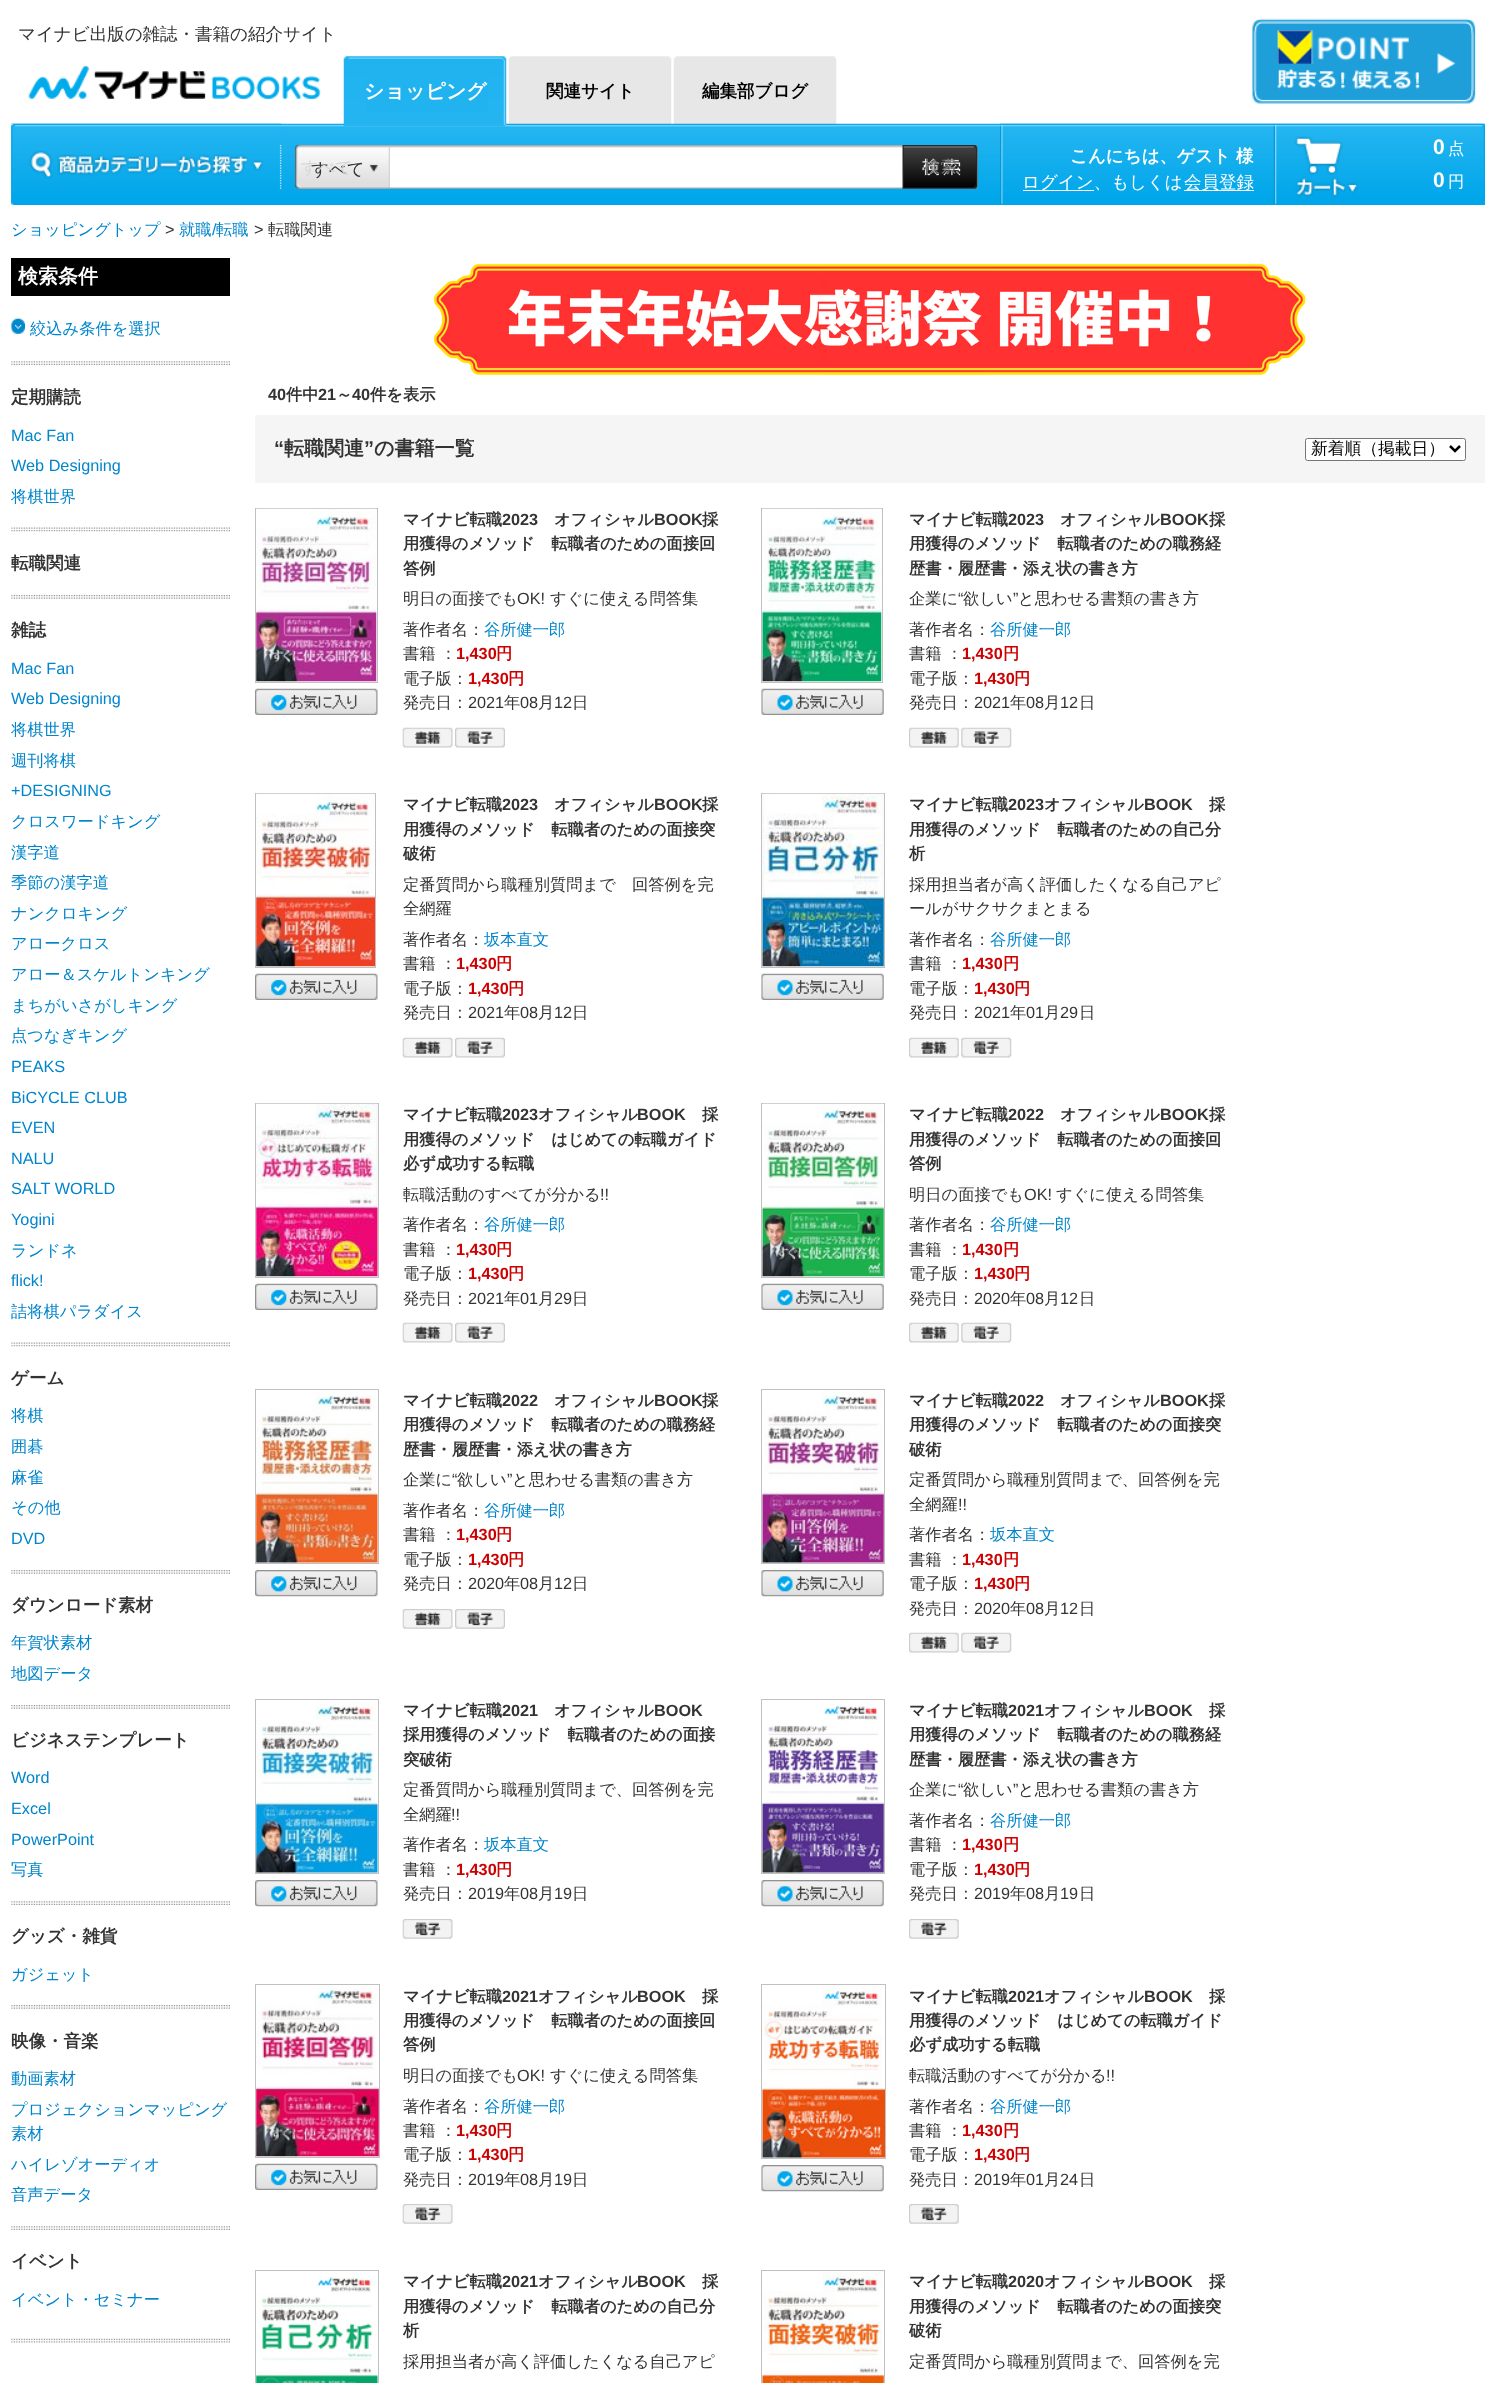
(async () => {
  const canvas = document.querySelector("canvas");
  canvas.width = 1496;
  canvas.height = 2383;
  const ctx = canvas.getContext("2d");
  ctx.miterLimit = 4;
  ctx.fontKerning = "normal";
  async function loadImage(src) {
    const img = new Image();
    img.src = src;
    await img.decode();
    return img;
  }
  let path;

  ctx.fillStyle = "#ffffff";
  ctx.fillRect(0, 0, 1496, 2383);
  ctx.drawImage(await loadImage("img/1.png"), 1252, 18, 224, 86);
  ctx.drawImage(await loadImage("img/2.png"), 28, 66, 293, 34);
  ctx.drawImage(await loadImage("img/5.png"), 11, 123, 1474, 82);
  ctx.drawImage(await loadImage("img/3.png"), 343, 56, 164, 71);
  ctx.drawImage(await loadImage("img/4.png"), 508, 56, 164, 71);
  ctx.drawImage(await loadImage("img/4.png"), 673, 56, 164, 71);
  ctx.drawImage(await loadImage("img/6.png"), 11, 123, 271, 82);
  ctx.drawImage(await loadImage("img/7.png"), 295, 145, 683, 44);
  ctx.drawImage(await loadImage("img/8.png"), 902, 145, 76, 44);
  ctx.drawImage(await loadImage("img/9.png"), 295, 147, 95, 42);
  ctx.drawImage(await loadImage("img/10.png"), 295, 145, 16, 44);
  ctx.drawImage(await loadImage("img/11.png"), 1000, 123, 275, 81);
  ctx.fillRect(1023, 190, 71, 1);
  ctx.fillRect(1184, 190, 70, 1);
  ctx.drawImage(await loadImage("img/12.png"), 1275, 123, 210, 81);
  ctx.fillStyle = "#000000";
  ctx.fillRect(11, 258, 219, 38);
  ctx.drawImage(await loadImage("img/13.png"), 11, 318, 14, 16);
  ctx.drawImage(await loadImage("img/14.png"), 11, 2338, 219, 5);
  ctx.drawImage(await loadImage("img/15.png"), 11, 361, 219, 4);
  ctx.drawImage(await loadImage("img/16.png"), 11, 527, 219, 5);
  ctx.drawImage(await loadImage("img/17.png"), 11, 595, 219, 4);
  ctx.drawImage(await loadImage("img/16.png"), 11, 1342, 219, 5);
  ctx.drawImage(await loadImage("img/17.png"), 11, 1570, 219, 4);
  ctx.drawImage(await loadImage("img/17.png"), 11, 1705, 219, 4);
  ctx.drawImage(await loadImage("img/15.png"), 11, 1901, 219, 4);
  ctx.drawImage(await loadImage("img/17.png"), 11, 2005, 219, 4);
  ctx.drawImage(await loadImage("img/15.png"), 11, 2226, 219, 4);
  ctx.drawImage(await loadImage("img/18.png"), 433, 263, 873, 112);
  ctx.fillStyle = "#f5f5f5";
  ctx.fillRect(255, 415, 1230, 68);
  ctx.fillStyle = "#ffffff";
  ctx.beginPath();
  ctx.roundRect(1305.5, 438.5, 160, 22, 2);
  ctx.fill();
  ctx.strokeStyle = "#767676";
  ctx.stroke();
  path = new Path2D("M1450 446L1455 451L1460 446");
  ctx.strokeStyle = "#000000";
  ctx.lineWidth = 2.5;
  ctx.stroke(path);
  ctx.strokeStyle = "#c0c0c0";
  ctx.lineWidth = 1;
  ctx.strokeRect(255.5, 508.5, 122, 174);
  ctx.drawImage(await loadImage("img/19.png"), 256, 508, 121, 174);
  ctx.drawImage(await loadImage("img/20.png"), 255, 688, 123, 27);
  ctx.drawImage(await loadImage("img/21.png"), 402, 727, 51, 21);
  ctx.drawImage(await loadImage("img/22.png"), 455, 727, 50, 21);
  ctx.strokeRect(761.5, 508.5, 121, 174);
  ctx.drawImage(await loadImage("img/23.png"), 762, 508, 120, 174);
  ctx.drawImage(await loadImage("img/24.png"), 761, 688, 123, 27);
  ctx.drawImage(await loadImage("img/25.png"), 909, 727, 50, 21);
  ctx.drawImage(await loadImage("img/26.png"), 961, 727, 51, 21);
  ctx.strokeRect(255.5, 793.5, 120, 174);
  ctx.drawImage(await loadImage("img/27.png"), 256, 793, 119, 174);
  ctx.drawImage(await loadImage("img/20.png"), 255, 973, 123, 27);
  ctx.drawImage(await loadImage("img/21.png"), 402, 1037, 51, 21);
  ctx.drawImage(await loadImage("img/22.png"), 455, 1037, 50, 21);
  ctx.strokeRect(761.5, 793.5, 123, 174);
  ctx.drawImage(await loadImage("img/28.png"), 762, 793, 122, 174);
  ctx.drawImage(await loadImage("img/24.png"), 761, 973, 123, 27);
  ctx.drawImage(await loadImage("img/25.png"), 909, 1037, 50, 21);
  ctx.drawImage(await loadImage("img/26.png"), 961, 1037, 51, 21);
  ctx.strokeRect(255.5, 1103.5, 123, 174);
  ctx.drawImage(await loadImage("img/29.png"), 256, 1103, 122, 174);
  ctx.drawImage(await loadImage("img/20.png"), 255, 1283, 123, 27);
  ctx.drawImage(await loadImage("img/21.png"), 402, 1322, 51, 21);
  ctx.drawImage(await loadImage("img/22.png"), 455, 1322, 50, 21);
  ctx.strokeRect(761.5, 1103.5, 123, 174);
  ctx.drawImage(await loadImage("img/30.png"), 762, 1103, 122, 174);
  ctx.drawImage(await loadImage("img/24.png"), 761, 1283, 123, 27);
  ctx.drawImage(await loadImage("img/25.png"), 909, 1322, 50, 21);
  ctx.drawImage(await loadImage("img/26.png"), 961, 1322, 51, 21);
  ctx.strokeRect(255.5, 1389.5, 123, 174);
  ctx.drawImage(await loadImage("img/31.png"), 256, 1390, 122, 173);
  ctx.drawImage(await loadImage("img/32.png"), 255, 1570, 123, 27);
  ctx.drawImage(await loadImage("img/33.png"), 402, 1609, 51, 20);
  ctx.drawImage(await loadImage("img/34.png"), 455, 1609, 50, 20);
  ctx.strokeRect(761.5, 1389.5, 123, 174);
  ctx.drawImage(await loadImage("img/35.png"), 762, 1390, 122, 173);
  ctx.drawImage(await loadImage("img/36.png"), 761, 1570, 123, 27);
  ctx.drawImage(await loadImage("img/25.png"), 909, 1632, 50, 21);
  ctx.drawImage(await loadImage("img/26.png"), 961, 1632, 51, 21);
  ctx.strokeRect(255.5, 1699.5, 123, 174);
  ctx.drawImage(await loadImage("img/37.png"), 256, 1700, 122, 173);
  ctx.drawImage(await loadImage("img/32.png"), 255, 1880, 123, 27);
  ctx.drawImage(await loadImage("img/38.png"), 402, 1919, 51, 20);
  ctx.strokeRect(761.5, 1699.5, 123, 174);
  ctx.drawImage(await loadImage("img/39.png"), 762, 1706, 122, 167);
  ctx.drawImage(await loadImage("img/36.png"), 761, 1880, 123, 27);
  ctx.drawImage(await loadImage("img/40.png"), 909, 1919, 50, 20);
  ctx.strokeRect(255.5, 1984.5, 124, 173);
  ctx.drawImage(await loadImage("img/41.png"), 256, 1985, 123, 172);
  ctx.drawImage(await loadImage("img/20.png"), 255, 2163, 123, 27);
  ctx.drawImage(await loadImage("img/38.png"), 402, 2204, 51, 20);
  ctx.strokeRect(761.5, 1984.5, 124, 174);
  ctx.drawImage(await loadImage("img/42.png"), 762, 1985, 123, 173);
  ctx.drawImage(await loadImage("img/36.png"), 761, 2165, 123, 27);
  ctx.drawImage(await loadImage("img/40.png"), 909, 2204, 50, 20);
  ctx.strokeRect(255.5, 2270.5, 123, 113);
  ctx.drawImage(await loadImage("img/43.png"), 256, 2277, 122, 106);
  ctx.strokeRect(761.5, 2270.5, 123, 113);
  ctx.drawImage(await loadImage("img/44.png"), 762, 2271, 122, 112);
  ctx.font = "500 17.5px WenQuanYi Zen Hei";
  ctx.fillStyle = "#333333";
  ctx.fillText("マイナビ出版の雑誌・書籍の紹介サイト", 18, 40);
  ctx.font = "bold 20px WenQuanYi Zen Hei";
  ctx.fillStyle = "#ffffff";
  ctx.fillText("ショッピング", 364, 98);
  ctx.font = "bold 17.5px WenQuanYi Zen Hei";
  ctx.fillStyle = "#000000";
  ctx.fillText("関連サイト", 546, 97);
  ctx.fillText("編集部ブログ", 702, 97);
  ctx.font = "500 16.25px WenQuanYi Zen Hei";
  ctx.fillStyle = "#767676";
  ctx.fillText("検索", 924, 172);
  ctx.font = "500 17.5px WenQuanYi Zen Hei";
  ctx.fillStyle = "#333333";
  ctx.fillText("すべて", 311, 175);
  ctx.font = "500 16.75px WenQuanYi Zen Hei";
  ctx.fillStyle = "#d7d7d7";
  ctx.fillText("すべて", 301, 173);
  ctx.font = "bold 17.5px WenQuanYi Zen Hei";
  ctx.fillStyle = "#ffffff";
  ctx.fillText("こんにちは、ゲスト 様", 1070, 162);
  ctx.font = "500 17.5px WenQuanYi Zen Hei";
  ctx.fillText("ログイン、もしくは", 1022, 188);
  ctx.fillText("会員登録", 1184, 188);
  ctx.font = "bold 21px Liberation Sans";
  ctx.fillText("0", 1433, 154);
  ctx.font = "500 16.25px WenQuanYi Zen Hei";
  ctx.fillText("点", 1448, 154);
  ctx.font = "bold 21px Liberation Sans";
  ctx.fillText("0", 1433, 187);
  ctx.font = "500 16.25px WenQuanYi Zen Hei";
  ctx.fillText("円", 1448, 187);
  ctx.fillStyle = "#0085cc";
  ctx.fillText("ショッピングトップ", 11, 235);
  ctx.font = "16.25px Liberation Sans";
  ctx.fillStyle = "#333333";
  ctx.fillText(">", 165, 235);
  ctx.font = "500 16.25px WenQuanYi Zen Hei";
  ctx.fillStyle = "#0085cc";
  ctx.fillText("就職", 179, 235);
  ctx.font = "16.25px Liberation Sans";
  ctx.fillText("/", 212, 235);
  ctx.font = "500 16.25px WenQuanYi Zen Hei";
  ctx.fillText("転職", 216, 235);
  ctx.font = "16.25px Liberation Sans";
  ctx.fillStyle = "#333333";
  ctx.fillText(">", 254, 235);
  ctx.font = "500 16.25px WenQuanYi Zen Hei";
  ctx.fillText("転職関連", 268, 235);
  ctx.font = "bold 20px WenQuanYi Zen Hei";
  ctx.fillStyle = "#ffffff";
  ctx.fillText("検索条件", 18, 283);
  ctx.font = "500 16.25px WenQuanYi Zen Hei";
  ctx.fillStyle = "#0085cc";
  ctx.fillText("絞込み条件を選択", 30, 334);
  ctx.font = "bold 17.5px WenQuanYi Zen Hei";
  ctx.fillStyle = "#333333";
  ctx.fillText("定期購読", 11, 403);
  ctx.font = "16.25px Liberation Sans";
  ctx.fillStyle = "#0085cc";
  ctx.fillText("Mac Fan", 11, 441);
  ctx.fillText("Web Designing", 11, 471);
  ctx.font = "500 16.25px WenQuanYi Zen Hei";
  ctx.fillText("将棋世界", 11, 502);
  ctx.font = "bold 17.5px WenQuanYi Zen Hei";
  ctx.fillStyle = "#333333";
  ctx.fillText("転職関連", 11, 569);
  ctx.fillText("雑誌", 11, 636);
  ctx.font = "16.25px Liberation Sans";
  ctx.fillStyle = "#0085cc";
  ctx.fillText("Mac Fan", 11, 674);
  ctx.fillText("Web Designing", 11, 704);
  ctx.font = "500 16.25px WenQuanYi Zen Hei";
  ctx.fillText("将棋世界", 11, 735);
  ctx.fillText("週刊将棋", 11, 766);
  ctx.font = "16.25px Liberation Sans";
  ctx.fillText("+DESIGNING", 11, 796);
  ctx.font = "500 16.25px WenQuanYi Zen Hei";
  for (const [text, x, y] of [
    ["クロスワードキング", 11, 827],
    ["漢字道", 11, 858],
    ["季節の漢字道", 11, 888],
    ["ナンクロキング", 11, 919],
    ["アロークロス", 11, 949],
    ["アロー＆スケルトンキング", 11, 980],
    ["まちがいさがしキング", 11, 1011],
    ["点つなぎキング", 11, 1041],
  ]) {
    ctx.fillText(text, x, y);
  }
  ctx.font = "16.25px Liberation Sans";
  for (const [text, x, y] of [
    ["PEAKS", 11, 1072],
    ["BiCYCLE CLUB", 11, 1103],
    ["EVEN", 11, 1133],
    ["NALU", 11, 1164],
    ["SALT WORLD", 11, 1194],
    ["Yogini", 11, 1225],
  ]) {
    ctx.fillText(text, x, y);
  }
  ctx.font = "500 16.25px WenQuanYi Zen Hei";
  ctx.fillText("ランドネ", 11, 1256);
  ctx.font = "16.25px Liberation Sans";
  ctx.fillText("flick!", 11, 1286);
  ctx.font = "500 16.25px WenQuanYi Zen Hei";
  ctx.fillText("詰将棋パラダイス", 11, 1317);
  ctx.font = "bold 17.5px WenQuanYi Zen Hei";
  ctx.fillStyle = "#333333";
  ctx.fillText("ゲーム", 11, 1384);
  ctx.font = "500 16.25px WenQuanYi Zen Hei";
  ctx.fillStyle = "#0085cc";
  for (const [text, x, y] of [
    ["将棋", 11, 1421],
    ["囲碁", 11, 1452],
    ["麻雀", 11, 1483],
    ["その他", 11, 1513],
  ]) {
    ctx.fillText(text, x, y);
  }
  ctx.font = "16.25px Liberation Sans";
  ctx.fillText("DVD", 11, 1544);
  ctx.font = "bold 17.5px WenQuanYi Zen Hei";
  ctx.fillStyle = "#333333";
  ctx.fillText("ダウンロード素材", 11, 1611);
  ctx.font = "500 16.25px WenQuanYi Zen Hei";
  ctx.fillStyle = "#0085cc";
  ctx.fillText("年賀状素材", 11, 1648);
  ctx.fillText("地図データ", 11, 1679);
  ctx.font = "bold 17.5px WenQuanYi Zen Hei";
  ctx.fillStyle = "#333333";
  ctx.fillText("ビジネステンプレート", 11, 1746);
  ctx.font = "16.25px Liberation Sans";
  ctx.fillStyle = "#0085cc";
  for (const [text, x, y] of [
    ["Word", 11, 1783],
    ["Excel", 11, 1814],
    ["PowerPoint", 11, 1845],
  ]) {
    ctx.fillText(text, x, y);
  }
  ctx.font = "500 16.25px WenQuanYi Zen Hei";
  ctx.fillText("写真", 11, 1875);
  ctx.font = "bold 17.5px WenQuanYi Zen Hei";
  ctx.fillStyle = "#333333";
  ctx.fillText("グッズ・雑貨", 11, 1942);
  ctx.font = "500 16.25px WenQuanYi Zen Hei";
  ctx.fillStyle = "#0085cc";
  ctx.fillText("ガジェット", 11, 1980);
  ctx.font = "bold 17.5px WenQuanYi Zen Hei";
  ctx.fillStyle = "#333333";
  ctx.fillText("映像・音楽", 11, 2047);
  ctx.font = "500 16.25px WenQuanYi Zen Hei";
  ctx.fillStyle = "#0085cc";
  for (const [text, x, y] of [
    ["動画素材", 11, 2084],
    ["プロジェクションマッピング", 11, 2115],
    ["素材", 11, 2139],
    ["ハイレゾオーディオ", 11, 2170],
    ["音声データ", 11, 2200],
  ]) {
    ctx.fillText(text, x, y);
  }
  ctx.font = "bold 17.5px WenQuanYi Zen Hei";
  ctx.fillStyle = "#333333";
  ctx.fillText("イベント", 11, 2267);
  ctx.font = "500 16.25px WenQuanYi Zen Hei";
  ctx.fillStyle = "#0085cc";
  ctx.fillText("イベント・セミナー", 11, 2305);
  ctx.font = "bold 16.25px Liberation Sans";
  ctx.fillStyle = "#333333";
  ctx.fillText("40", 268, 400);
  ctx.font = "bold 16.25px WenQuanYi Zen Hei";
  ctx.fillText("件中", 286, 400);
  ctx.font = "bold 16.25px Liberation Sans";
  ctx.fillText("21", 318, 400);
  ctx.font = "bold 16.25px WenQuanYi Zen Hei";
  ctx.fillText("～", 336, 400);
  ctx.font = "bold 16.25px Liberation Sans";
  ctx.fillText("40", 352, 400);
  ctx.font = "bold 16.25px WenQuanYi Zen Hei";
  ctx.fillText("件を表示", 370, 400);
  ctx.font = "bold 20px Liberation Sans";
  ctx.fillText("“", 274, 455);
  ctx.font = "bold 20px WenQuanYi Zen Hei";
  ctx.fillText("転職関連", 284, 455);
  ctx.font = "bold 20px Liberation Sans";
  ctx.fillText("”", 364, 455);
  ctx.font = "bold 20px WenQuanYi Zen Hei";
  ctx.fillText("の書籍一覧", 374, 455);
  ctx.font = "500 16.75px WenQuanYi Zen Hei";
  ctx.fillStyle = "#000000";
  ctx.fillText("新着順（掲載日）", 1311, 454);
  ctx.font = "bold 16.25px WenQuanYi Zen Hei";
  ctx.fillStyle = "#333333";
  ctx.fillText("マイナビ転職", 403, 525);
  ctx.font = "bold 16.25px Liberation Sans";
  ctx.fillText("2023", 502, 525);
  ctx.font = "bold 16.25px WenQuanYi Zen Hei";
  ctx.fillText("オフィシャル", 554, 525);
  ctx.font = "bold 16.25px Liberation Sans";
  ctx.fillText("BOOK", 654, 525);
  ctx.font = "bold 16.25px WenQuanYi Zen Hei";
  for (const [text, x, y] of [
    ["採", 702, 525],
    ["用獲得のメソッド　転職者のための面接回", 403, 549],
    ["答例", 403, 574],
  ]) {
    ctx.fillText(text, x, y);
  }
  ctx.font = "500 16.25px WenQuanYi Zen Hei";
  ctx.fillText("明日の面接でも", 403, 604);
  ctx.font = "16.25px Liberation Sans";
  ctx.fillText("OK!", 517, 604);
  ctx.font = "500 16.25px WenQuanYi Zen Hei";
  ctx.fillText("すぐに使える問答集", 550, 604);
  ctx.fillText("著作者名：", 403, 635);
  ctx.fillStyle = "#0085cc";
  ctx.fillText("谷所健一郎", 484, 635);
  ctx.fillStyle = "#333333";
  ctx.fillText("書籍 ：", 403, 659);
  ctx.font = "bold 16.25px Liberation Sans";
  ctx.fillStyle = "#cc0000";
  ctx.fillText("1,430", 456, 659);
  ctx.font = "bold 16.25px WenQuanYi Zen Hei";
  ctx.fillText("円", 496, 659);
  ctx.font = "500 16.25px WenQuanYi Zen Hei";
  ctx.fillStyle = "#333333";
  ctx.fillText("電子版：", 403, 684);
  ctx.font = "bold 16.25px Liberation Sans";
  ctx.fillStyle = "#cc0000";
  ctx.fillText("1,430", 468, 684);
  ctx.font = "bold 16.25px WenQuanYi Zen Hei";
  ctx.fillText("円", 508, 684);
  ctx.font = "500 16.25px WenQuanYi Zen Hei";
  ctx.fillStyle = "#333333";
  ctx.fillText("発売日：", 403, 708);
  ctx.font = "16.25px Liberation Sans";
  ctx.fillText("2021", 468, 708);
  ctx.font = "500 16.25px WenQuanYi Zen Hei";
  ctx.fillText("年", 504, 708);
  ctx.font = "16.25px Liberation Sans";
  ctx.fillText("08", 520, 708);
  ctx.font = "500 16.25px WenQuanYi Zen Hei";
  ctx.fillText("月", 538, 708);
  ctx.font = "16.25px Liberation Sans";
  ctx.fillText("12", 554, 708);
  ctx.font = "500 16.25px WenQuanYi Zen Hei";
  ctx.fillText("日", 572, 708);
  ctx.font = "bold 16.25px WenQuanYi Zen Hei";
  ctx.fillText("マイナビ転職", 909, 525);
  ctx.font = "bold 16.25px Liberation Sans";
  ctx.fillText("2023", 1008, 525);
  ctx.font = "bold 16.25px WenQuanYi Zen Hei";
  ctx.fillText("オフィシャル", 1060, 525);
  ctx.font = "bold 16.25px Liberation Sans";
  ctx.fillText("BOOK", 1160, 525);
  ctx.font = "bold 16.25px WenQuanYi Zen Hei";
  for (const [text, x, y] of [
    ["採", 1209, 525],
    ["用獲得のメソッド　転職者のための職務経", 909, 549],
    ["歴書・履歴書・添え状の書き方", 909, 574],
  ]) {
    ctx.fillText(text, x, y);
  }
  ctx.font = "500 16.25px WenQuanYi Zen Hei";
  ctx.fillText("企業に", 909, 604);
  ctx.font = "16.25px Liberation Sans";
  ctx.fillText("“", 958, 604);
  ctx.font = "500 16.25px WenQuanYi Zen Hei";
  ctx.fillText("欲しい", 963, 604);
  ctx.font = "16.25px Liberation Sans";
  ctx.fillText("”", 1013, 604);
  ctx.font = "500 16.25px WenQuanYi Zen Hei";
  ctx.fillText("と思わせる書類の書き方", 1018, 604);
  ctx.fillText("著作者名：", 909, 635);
  ctx.fillStyle = "#0085cc";
  ctx.fillText("谷所健一郎", 990, 635);
  ctx.fillStyle = "#333333";
  ctx.fillText("書籍 ：", 909, 659);
  ctx.font = "bold 16.25px Liberation Sans";
  ctx.fillStyle = "#cc0000";
  ctx.fillText("1,430", 962, 659);
  ctx.font = "bold 16.25px WenQuanYi Zen Hei";
  ctx.fillText("円", 1003, 659);
  ctx.font = "500 16.25px WenQuanYi Zen Hei";
  ctx.fillStyle = "#333333";
  ctx.fillText("電子版：", 909, 684);
  ctx.font = "bold 16.25px Liberation Sans";
  ctx.fillStyle = "#cc0000";
  ctx.fillText("1,430", 974, 684);
  ctx.font = "bold 16.25px WenQuanYi Zen Hei";
  ctx.fillText("円", 1014, 684);
  ctx.font = "500 16.25px WenQuanYi Zen Hei";
  ctx.fillStyle = "#333333";
  ctx.fillText("発売日：", 909, 708);
  ctx.font = "16.25px Liberation Sans";
  ctx.fillText("2021", 974, 708);
  ctx.font = "500 16.25px WenQuanYi Zen Hei";
  ctx.fillText("年", 1010, 708);
  ctx.font = "16.25px Liberation Sans";
  ctx.fillText("08", 1026, 708);
  ctx.font = "500 16.25px WenQuanYi Zen Hei";
  ctx.fillText("月", 1044, 708);
  ctx.font = "16.25px Liberation Sans";
  ctx.fillText("12", 1060, 708);
  ctx.font = "500 16.25px WenQuanYi Zen Hei";
  ctx.fillText("日", 1079, 708);
  ctx.font = "bold 16.25px WenQuanYi Zen Hei";
  ctx.fillText("マイナビ転職", 403, 810);
  ctx.font = "bold 16.25px Liberation Sans";
  ctx.fillText("2023", 502, 810);
  ctx.font = "bold 16.25px WenQuanYi Zen Hei";
  ctx.fillText("オフィシャル", 554, 810);
  ctx.font = "bold 16.25px Liberation Sans";
  ctx.fillText("BOOK", 654, 810);
  ctx.font = "bold 16.25px WenQuanYi Zen Hei";
  for (const [text, x, y] of [
    ["採", 702, 810],
    ["用獲得のメソッド　転職者のための面接突", 403, 835],
    ["破術", 403, 859],
  ]) {
    ctx.fillText(text, x, y);
  }
  ctx.font = "500 16.25px WenQuanYi Zen Hei";
  for (const [text, x, y] of [
    ["定番質問から職種別質問まで　回答例を完", 403, 890],
    ["全網羅", 403, 914],
    ["著作者名：", 403, 945],
  ]) {
    ctx.fillText(text, x, y);
  }
  ctx.fillStyle = "#0085cc";
  ctx.fillText("坂本直文", 484, 945);
  ctx.fillStyle = "#333333";
  ctx.fillText("書籍 ：", 403, 969);
  ctx.font = "bold 16.25px Liberation Sans";
  ctx.fillStyle = "#cc0000";
  ctx.fillText("1,430", 456, 969);
  ctx.font = "bold 16.25px WenQuanYi Zen Hei";
  ctx.fillText("円", 496, 969);
  ctx.font = "500 16.25px WenQuanYi Zen Hei";
  ctx.fillStyle = "#333333";
  ctx.fillText("電子版：", 403, 994);
  ctx.font = "bold 16.25px Liberation Sans";
  ctx.fillStyle = "#cc0000";
  ctx.fillText("1,430", 468, 994);
  ctx.font = "bold 16.25px WenQuanYi Zen Hei";
  ctx.fillText("円", 508, 994);
  ctx.font = "500 16.25px WenQuanYi Zen Hei";
  ctx.fillStyle = "#333333";
  ctx.fillText("発売日：", 403, 1018);
  ctx.font = "16.25px Liberation Sans";
  ctx.fillText("2021", 468, 1018);
  ctx.font = "500 16.25px WenQuanYi Zen Hei";
  ctx.fillText("年", 504, 1018);
  ctx.font = "16.25px Liberation Sans";
  ctx.fillText("08", 520, 1018);
  ctx.font = "500 16.25px WenQuanYi Zen Hei";
  ctx.fillText("月", 538, 1018);
  ctx.font = "16.25px Liberation Sans";
  ctx.fillText("12", 554, 1018);
  ctx.font = "500 16.25px WenQuanYi Zen Hei";
  ctx.fillText("日", 572, 1018);
  ctx.font = "bold 16.25px WenQuanYi Zen Hei";
  ctx.fillText("マイナビ転職", 909, 810);
  ctx.font = "bold 16.25px Liberation Sans";
  ctx.fillText("2023", 1008, 810);
  ctx.font = "bold 16.25px WenQuanYi Zen Hei";
  ctx.fillText("オフィシャル", 1044, 810);
  ctx.font = "bold 16.25px Liberation Sans";
  ctx.fillText("BOOK", 1144, 810);
  ctx.font = "bold 16.25px WenQuanYi Zen Hei";
  for (const [text, x, y] of [
    ["採", 1209, 810],
    ["用獲得のメソッド　転職者のための自己分", 909, 835],
    ["析", 909, 859],
  ]) {
    ctx.fillText(text, x, y);
  }
  ctx.font = "500 16.25px WenQuanYi Zen Hei";
  for (const [text, x, y] of [
    ["採用担当者が高く評価したくなる自己アピ", 909, 890],
    ["ールがサクサクまとまる", 909, 914],
    ["著作者名：", 909, 945],
  ]) {
    ctx.fillText(text, x, y);
  }
  ctx.fillStyle = "#0085cc";
  ctx.fillText("谷所健一郎", 990, 945);
  ctx.fillStyle = "#333333";
  ctx.fillText("書籍 ：", 909, 969);
  ctx.font = "bold 16.25px Liberation Sans";
  ctx.fillStyle = "#cc0000";
  ctx.fillText("1,430", 962, 969);
  ctx.font = "bold 16.25px WenQuanYi Zen Hei";
  ctx.fillText("円", 1003, 969);
  ctx.font = "500 16.25px WenQuanYi Zen Hei";
  ctx.fillStyle = "#333333";
  ctx.fillText("電子版：", 909, 994);
  ctx.font = "bold 16.25px Liberation Sans";
  ctx.fillStyle = "#cc0000";
  ctx.fillText("1,430", 974, 994);
  ctx.font = "bold 16.25px WenQuanYi Zen Hei";
  ctx.fillText("円", 1014, 994);
  ctx.font = "500 16.25px WenQuanYi Zen Hei";
  ctx.fillStyle = "#333333";
  ctx.fillText("発売日：", 909, 1018);
  ctx.font = "16.25px Liberation Sans";
  ctx.fillText("2021", 974, 1018);
  ctx.font = "500 16.25px WenQuanYi Zen Hei";
  ctx.fillText("年", 1010, 1018);
  ctx.font = "16.25px Liberation Sans";
  ctx.fillText("01", 1026, 1018);
  ctx.font = "500 16.25px WenQuanYi Zen Hei";
  ctx.fillText("月", 1044, 1018);
  ctx.font = "16.25px Liberation Sans";
  ctx.fillText("29", 1060, 1018);
  ctx.font = "500 16.25px WenQuanYi Zen Hei";
  ctx.fillText("日", 1079, 1018);
  ctx.font = "bold 16.25px WenQuanYi Zen Hei";
  ctx.fillText("マイナビ転職", 403, 1120);
  ctx.font = "bold 16.25px Liberation Sans";
  ctx.fillText("2023", 502, 1120);
  ctx.font = "bold 16.25px WenQuanYi Zen Hei";
  ctx.fillText("オフィシャル", 538, 1120);
  ctx.font = "bold 16.25px Liberation Sans";
  ctx.fillText("BOOK", 637, 1120);
  ctx.font = "bold 16.25px WenQuanYi Zen Hei";
  for (const [text, x, y] of [
    ["採", 702, 1120],
    ["用獲得のメソッド　はじめての転職ガイド", 403, 1145],
    ["必ず成功する転職", 403, 1169],
  ]) {
    ctx.fillText(text, x, y);
  }
  ctx.font = "500 16.25px WenQuanYi Zen Hei";
  ctx.fillText("転職活動のすべてが分かる", 403, 1200);
  ctx.font = "16.25px Liberation Sans";
  ctx.fillText("!!", 600, 1200);
  ctx.font = "500 16.25px WenQuanYi Zen Hei";
  ctx.fillText("著作者名：", 403, 1230);
  ctx.fillStyle = "#0085cc";
  ctx.fillText("谷所健一郎", 484, 1230);
  ctx.fillStyle = "#333333";
  ctx.fillText("書籍 ：", 403, 1255);
  ctx.font = "bold 16.25px Liberation Sans";
  ctx.fillStyle = "#cc0000";
  ctx.fillText("1,430", 456, 1255);
  ctx.font = "bold 16.25px WenQuanYi Zen Hei";
  ctx.fillText("円", 496, 1255);
  ctx.font = "500 16.25px WenQuanYi Zen Hei";
  ctx.fillStyle = "#333333";
  ctx.fillText("電子版：", 403, 1279);
  ctx.font = "bold 16.25px Liberation Sans";
  ctx.fillStyle = "#cc0000";
  ctx.fillText("1,430", 468, 1279);
  ctx.font = "bold 16.25px WenQuanYi Zen Hei";
  ctx.fillText("円", 508, 1279);
  ctx.font = "500 16.25px WenQuanYi Zen Hei";
  ctx.fillStyle = "#333333";
  ctx.fillText("発売日：", 403, 1304);
  ctx.font = "16.25px Liberation Sans";
  ctx.fillText("2021", 468, 1304);
  ctx.font = "500 16.25px WenQuanYi Zen Hei";
  ctx.fillText("年", 504, 1304);
  ctx.font = "16.25px Liberation Sans";
  ctx.fillText("01", 520, 1304);
  ctx.font = "500 16.25px WenQuanYi Zen Hei";
  ctx.fillText("月", 538, 1304);
  ctx.font = "16.25px Liberation Sans";
  ctx.fillText("29", 554, 1304);
  ctx.font = "500 16.25px WenQuanYi Zen Hei";
  ctx.fillText("日", 572, 1304);
  ctx.font = "bold 16.25px WenQuanYi Zen Hei";
  ctx.fillText("マイナビ転職", 909, 1120);
  ctx.font = "bold 16.25px Liberation Sans";
  ctx.fillText("2022", 1008, 1120);
  ctx.font = "bold 16.25px WenQuanYi Zen Hei";
  ctx.fillText("オフィシャル", 1060, 1120);
  ctx.font = "bold 16.25px Liberation Sans";
  ctx.fillText("BOOK", 1160, 1120);
  ctx.font = "bold 16.25px WenQuanYi Zen Hei";
  for (const [text, x, y] of [
    ["採", 1209, 1120],
    ["用獲得のメソッド　転職者のための面接回", 909, 1145],
    ["答例", 909, 1169],
  ]) {
    ctx.fillText(text, x, y);
  }
  ctx.font = "500 16.25px WenQuanYi Zen Hei";
  ctx.fillText("明日の面接でも", 909, 1200);
  ctx.font = "16.25px Liberation Sans";
  ctx.fillText("OK!", 1024, 1200);
  ctx.font = "500 16.25px WenQuanYi Zen Hei";
  ctx.fillText("すぐに使える問答集", 1056, 1200);
  ctx.fillText("著作者名：", 909, 1230);
  ctx.fillStyle = "#0085cc";
  ctx.fillText("谷所健一郎", 990, 1230);
  ctx.fillStyle = "#333333";
  ctx.fillText("書籍 ：", 909, 1255);
  ctx.font = "bold 16.25px Liberation Sans";
  ctx.fillStyle = "#cc0000";
  ctx.fillText("1,430", 962, 1255);
  ctx.font = "bold 16.25px WenQuanYi Zen Hei";
  ctx.fillText("円", 1003, 1255);
  ctx.font = "500 16.25px WenQuanYi Zen Hei";
  ctx.fillStyle = "#333333";
  ctx.fillText("電子版：", 909, 1279);
  ctx.font = "bold 16.25px Liberation Sans";
  ctx.fillStyle = "#cc0000";
  ctx.fillText("1,430", 974, 1279);
  ctx.font = "bold 16.25px WenQuanYi Zen Hei";
  ctx.fillText("円", 1014, 1279);
  ctx.font = "500 16.25px WenQuanYi Zen Hei";
  ctx.fillStyle = "#333333";
  ctx.fillText("発売日：", 909, 1304);
  ctx.font = "16.25px Liberation Sans";
  ctx.fillText("2020", 974, 1304);
  ctx.font = "500 16.25px WenQuanYi Zen Hei";
  ctx.fillText("年", 1010, 1304);
  ctx.font = "16.25px Liberation Sans";
  ctx.fillText("08", 1026, 1304);
  ctx.font = "500 16.25px WenQuanYi Zen Hei";
  ctx.fillText("月", 1044, 1304);
  ctx.font = "16.25px Liberation Sans";
  ctx.fillText("12", 1060, 1304);
  ctx.font = "500 16.25px WenQuanYi Zen Hei";
  ctx.fillText("日", 1079, 1304);
  ctx.font = "bold 16.25px WenQuanYi Zen Hei";
  ctx.fillText("マイナビ転職", 403, 1406);
  ctx.font = "bold 16.25px Liberation Sans";
  ctx.fillText("2022", 502, 1406);
  ctx.font = "bold 16.25px WenQuanYi Zen Hei";
  ctx.fillText("オフィシャル", 554, 1406);
  ctx.font = "bold 16.25px Liberation Sans";
  ctx.fillText("BOOK", 654, 1406);
  ctx.font = "bold 16.25px WenQuanYi Zen Hei";
  for (const [text, x, y] of [
    ["採", 702, 1406],
    ["用獲得のメソッド　転職者のための職務経", 403, 1430],
    ["歴書・履歴書・添え状の書き方", 403, 1455],
  ]) {
    ctx.fillText(text, x, y);
  }
  ctx.font = "500 16.25px WenQuanYi Zen Hei";
  ctx.fillText("企業に", 403, 1485);
  ctx.font = "16.25px Liberation Sans";
  ctx.fillText("“", 452, 1485);
  ctx.font = "500 16.25px WenQuanYi Zen Hei";
  ctx.fillText("欲しい", 457, 1485);
  ctx.font = "16.25px Liberation Sans";
  ctx.fillText("”", 507, 1485);
  ctx.font = "500 16.25px WenQuanYi Zen Hei";
  ctx.fillText("と思わせる書類の書き方", 512, 1485);
  ctx.fillText("著作者名：", 403, 1516);
  ctx.fillStyle = "#0085cc";
  ctx.fillText("谷所健一郎", 484, 1516);
  ctx.fillStyle = "#333333";
  ctx.fillText("書籍 ：", 403, 1540);
  ctx.font = "bold 16.25px Liberation Sans";
  ctx.fillStyle = "#cc0000";
  ctx.fillText("1,430", 456, 1540);
  ctx.font = "bold 16.25px WenQuanYi Zen Hei";
  ctx.fillText("円", 496, 1540);
  ctx.font = "500 16.25px WenQuanYi Zen Hei";
  ctx.fillStyle = "#333333";
  ctx.fillText("電子版：", 403, 1565);
  ctx.font = "bold 16.25px Liberation Sans";
  ctx.fillStyle = "#cc0000";
  ctx.fillText("1,430", 468, 1565);
  ctx.font = "bold 16.25px WenQuanYi Zen Hei";
  ctx.fillText("円", 508, 1565);
  ctx.font = "500 16.25px WenQuanYi Zen Hei";
  ctx.fillStyle = "#333333";
  ctx.fillText("発売日：", 403, 1589);
  ctx.font = "16.25px Liberation Sans";
  ctx.fillText("2020", 468, 1589);
  ctx.font = "500 16.25px WenQuanYi Zen Hei";
  ctx.fillText("年", 504, 1589);
  ctx.font = "16.25px Liberation Sans";
  ctx.fillText("08", 520, 1589);
  ctx.font = "500 16.25px WenQuanYi Zen Hei";
  ctx.fillText("月", 538, 1589);
  ctx.font = "16.25px Liberation Sans";
  ctx.fillText("12", 554, 1589);
  ctx.font = "500 16.25px WenQuanYi Zen Hei";
  ctx.fillText("日", 572, 1589);
  ctx.font = "bold 16.25px WenQuanYi Zen Hei";
  ctx.fillText("マイナビ転職", 909, 1406);
  ctx.font = "bold 16.25px Liberation Sans";
  ctx.fillText("2022", 1008, 1406);
  ctx.font = "bold 16.25px WenQuanYi Zen Hei";
  ctx.fillText("オフィシャル", 1060, 1406);
  ctx.font = "bold 16.25px Liberation Sans";
  ctx.fillText("BOOK", 1160, 1406);
  ctx.font = "bold 16.25px WenQuanYi Zen Hei";
  for (const [text, x, y] of [
    ["採", 1209, 1406],
    ["用獲得のメソッド　転職者のための面接突", 909, 1430],
    ["破術", 909, 1455],
  ]) {
    ctx.fillText(text, x, y);
  }
  ctx.font = "500 16.25px WenQuanYi Zen Hei";
  ctx.fillText("定番質問から職種別質問まで、回答例を完", 909, 1485);
  ctx.fillText("全網羅", 909, 1510);
  ctx.font = "16.25px Liberation Sans";
  ctx.fillText("!!", 958, 1510);
  ctx.font = "500 16.25px WenQuanYi Zen Hei";
  ctx.fillText("著作者名：", 909, 1540);
  ctx.fillStyle = "#0085cc";
  ctx.fillText("坂本直文", 990, 1540);
  ctx.fillStyle = "#333333";
  ctx.fillText("書籍 ：", 909, 1565);
  ctx.font = "bold 16.25px Liberation Sans";
  ctx.fillStyle = "#cc0000";
  ctx.fillText("1,430", 962, 1565);
  ctx.font = "bold 16.25px WenQuanYi Zen Hei";
  ctx.fillText("円", 1003, 1565);
  ctx.font = "500 16.25px WenQuanYi Zen Hei";
  ctx.fillStyle = "#333333";
  ctx.fillText("電子版：", 909, 1589);
  ctx.font = "bold 16.25px Liberation Sans";
  ctx.fillStyle = "#cc0000";
  ctx.fillText("1,430", 974, 1589);
  ctx.font = "bold 16.25px WenQuanYi Zen Hei";
  ctx.fillText("円", 1014, 1589);
  ctx.font = "500 16.25px WenQuanYi Zen Hei";
  ctx.fillStyle = "#333333";
  ctx.fillText("発売日：", 909, 1614);
  ctx.font = "16.25px Liberation Sans";
  ctx.fillText("2020", 974, 1614);
  ctx.font = "500 16.25px WenQuanYi Zen Hei";
  ctx.fillText("年", 1010, 1614);
  ctx.font = "16.25px Liberation Sans";
  ctx.fillText("08", 1026, 1614);
  ctx.font = "500 16.25px WenQuanYi Zen Hei";
  ctx.fillText("月", 1044, 1614);
  ctx.font = "16.25px Liberation Sans";
  ctx.fillText("12", 1060, 1614);
  ctx.font = "500 16.25px WenQuanYi Zen Hei";
  ctx.fillText("日", 1079, 1614);
  ctx.font = "bold 16.25px WenQuanYi Zen Hei";
  ctx.fillText("マイナビ転職", 403, 1716);
  ctx.font = "bold 16.25px Liberation Sans";
  ctx.fillText("2021", 502, 1716);
  ctx.font = "bold 16.25px WenQuanYi Zen Hei";
  ctx.fillText("オフィシャル", 554, 1716);
  ctx.font = "bold 16.25px Liberation Sans";
  ctx.fillText("BOOK", 654, 1716);
  ctx.font = "bold 16.25px WenQuanYi Zen Hei";
  ctx.fillText("採用獲得のメソッド　転職者のための面接", 403, 1740);
  ctx.fillText("突破術", 403, 1765);
  ctx.font = "500 16.25px WenQuanYi Zen Hei";
  ctx.fillText("定番質問から職種別質問まで、回答例を完", 403, 1795);
  ctx.fillText("全網羅", 403, 1820);
  ctx.font = "16.25px Liberation Sans";
  ctx.fillText("!!", 451, 1820);
  ctx.font = "500 16.25px WenQuanYi Zen Hei";
  ctx.fillText("著作者名：", 403, 1850);
  ctx.fillStyle = "#0085cc";
  ctx.fillText("坂本直文", 484, 1850);
  ctx.fillStyle = "#333333";
  ctx.fillText("書籍 ：", 403, 1875);
  ctx.font = "bold 16.25px Liberation Sans";
  ctx.fillStyle = "#cc0000";
  ctx.fillText("1,430", 456, 1875);
  ctx.font = "bold 16.25px WenQuanYi Zen Hei";
  ctx.fillText("円", 496, 1875);
  ctx.font = "500 16.25px WenQuanYi Zen Hei";
  ctx.fillStyle = "#333333";
  ctx.fillText("発売日：", 403, 1899);
  ctx.font = "16.25px Liberation Sans";
  ctx.fillText("2019", 468, 1899);
  ctx.font = "500 16.25px WenQuanYi Zen Hei";
  ctx.fillText("年", 504, 1899);
  ctx.font = "16.25px Liberation Sans";
  ctx.fillText("08", 520, 1899);
  ctx.font = "500 16.25px WenQuanYi Zen Hei";
  ctx.fillText("月", 538, 1899);
  ctx.font = "16.25px Liberation Sans";
  ctx.fillText("19", 554, 1899);
  ctx.font = "500 16.25px WenQuanYi Zen Hei";
  ctx.fillText("日", 572, 1899);
  ctx.font = "bold 16.25px WenQuanYi Zen Hei";
  ctx.fillText("マイナビ転職", 909, 1716);
  ctx.font = "bold 16.25px Liberation Sans";
  ctx.fillText("2021", 1008, 1716);
  ctx.font = "bold 16.25px WenQuanYi Zen Hei";
  ctx.fillText("オフィシャル", 1044, 1716);
  ctx.font = "bold 16.25px Liberation Sans";
  ctx.fillText("BOOK", 1144, 1716);
  ctx.font = "bold 16.25px WenQuanYi Zen Hei";
  for (const [text, x, y] of [
    ["採", 1209, 1716],
    ["用獲得のメソッド　転職者のための職務経", 909, 1740],
    ["歴書・履歴書・添え状の書き方", 909, 1765],
  ]) {
    ctx.fillText(text, x, y);
  }
  ctx.font = "500 16.25px WenQuanYi Zen Hei";
  ctx.fillText("企業に", 909, 1795);
  ctx.font = "16.25px Liberation Sans";
  ctx.fillText("“", 958, 1795);
  ctx.font = "500 16.25px WenQuanYi Zen Hei";
  ctx.fillText("欲しい", 963, 1795);
  ctx.font = "16.25px Liberation Sans";
  ctx.fillText("”", 1013, 1795);
  ctx.font = "500 16.25px WenQuanYi Zen Hei";
  ctx.fillText("と思わせる書類の書き方", 1018, 1795);
  ctx.fillText("著作者名：", 909, 1826);
  ctx.fillStyle = "#0085cc";
  ctx.fillText("谷所健一郎", 990, 1826);
  ctx.fillStyle = "#333333";
  ctx.fillText("書籍 ：", 909, 1850);
  ctx.font = "bold 16.25px Liberation Sans";
  ctx.fillStyle = "#cc0000";
  ctx.fillText("1,430", 962, 1850);
  ctx.font = "bold 16.25px WenQuanYi Zen Hei";
  ctx.fillText("円", 1003, 1850);
  ctx.font = "500 16.25px WenQuanYi Zen Hei";
  ctx.fillStyle = "#333333";
  ctx.fillText("電子版：", 909, 1875);
  ctx.font = "bold 16.25px Liberation Sans";
  ctx.fillStyle = "#cc0000";
  ctx.fillText("1,430", 974, 1875);
  ctx.font = "bold 16.25px WenQuanYi Zen Hei";
  ctx.fillText("円", 1014, 1875);
  ctx.font = "500 16.25px WenQuanYi Zen Hei";
  ctx.fillStyle = "#333333";
  ctx.fillText("発売日：", 909, 1899);
  ctx.font = "16.25px Liberation Sans";
  ctx.fillText("2019", 974, 1899);
  ctx.font = "500 16.25px WenQuanYi Zen Hei";
  ctx.fillText("年", 1010, 1899);
  ctx.font = "16.25px Liberation Sans";
  ctx.fillText("08", 1026, 1899);
  ctx.font = "500 16.25px WenQuanYi Zen Hei";
  ctx.fillText("月", 1044, 1899);
  ctx.font = "16.25px Liberation Sans";
  ctx.fillText("19", 1060, 1899);
  ctx.font = "500 16.25px WenQuanYi Zen Hei";
  ctx.fillText("日", 1079, 1899);
  ctx.font = "bold 16.25px WenQuanYi Zen Hei";
  ctx.fillText("マイナビ転職", 403, 2002);
  ctx.font = "bold 16.25px Liberation Sans";
  ctx.fillText("2021", 502, 2002);
  ctx.font = "bold 16.25px WenQuanYi Zen Hei";
  ctx.fillText("オフィシャル", 538, 2002);
  ctx.font = "bold 16.25px Liberation Sans";
  ctx.fillText("BOOK", 637, 2002);
  ctx.font = "bold 16.25px WenQuanYi Zen Hei";
  for (const [text, x, y] of [
    ["採", 702, 2002],
    ["用獲得のメソッド　転職者のための面接回", 403, 2026],
    ["答例", 403, 2050],
  ]) {
    ctx.fillText(text, x, y);
  }
  ctx.font = "500 16.25px WenQuanYi Zen Hei";
  ctx.fillText("明日の面接でも", 403, 2081);
  ctx.font = "16.25px Liberation Sans";
  ctx.fillText("OK!", 517, 2081);
  ctx.font = "500 16.25px WenQuanYi Zen Hei";
  ctx.fillText("すぐに使える問答集", 550, 2081);
  ctx.fillText("著作者名：", 403, 2112);
  ctx.fillStyle = "#0085cc";
  ctx.fillText("谷所健一郎", 484, 2112);
  ctx.fillStyle = "#333333";
  ctx.fillText("書籍 ：", 403, 2136);
  ctx.font = "bold 16.25px Liberation Sans";
  ctx.fillStyle = "#cc0000";
  ctx.fillText("1,430", 456, 2136);
  ctx.font = "bold 16.25px WenQuanYi Zen Hei";
  ctx.fillText("円", 496, 2136);
  ctx.font = "500 16.25px WenQuanYi Zen Hei";
  ctx.fillStyle = "#333333";
  ctx.fillText("電子版：", 403, 2160);
  ctx.font = "bold 16.25px Liberation Sans";
  ctx.fillStyle = "#cc0000";
  ctx.fillText("1,430", 468, 2160);
  ctx.font = "bold 16.25px WenQuanYi Zen Hei";
  ctx.fillText("円", 508, 2160);
  ctx.font = "500 16.25px WenQuanYi Zen Hei";
  ctx.fillStyle = "#333333";
  ctx.fillText("発売日：", 403, 2185);
  ctx.font = "16.25px Liberation Sans";
  ctx.fillText("2019", 468, 2185);
  ctx.font = "500 16.25px WenQuanYi Zen Hei";
  ctx.fillText("年", 504, 2185);
  ctx.font = "16.25px Liberation Sans";
  ctx.fillText("08", 520, 2185);
  ctx.font = "500 16.25px WenQuanYi Zen Hei";
  ctx.fillText("月", 538, 2185);
  ctx.font = "16.25px Liberation Sans";
  ctx.fillText("19", 554, 2185);
  ctx.font = "500 16.25px WenQuanYi Zen Hei";
  ctx.fillText("日", 572, 2185);
  ctx.font = "bold 16.25px WenQuanYi Zen Hei";
  ctx.fillText("マイナビ転職", 909, 2002);
  ctx.font = "bold 16.25px Liberation Sans";
  ctx.fillText("2021", 1008, 2002);
  ctx.font = "bold 16.25px WenQuanYi Zen Hei";
  ctx.fillText("オフィシャル", 1044, 2002);
  ctx.font = "bold 16.25px Liberation Sans";
  ctx.fillText("BOOK", 1144, 2002);
  ctx.font = "bold 16.25px WenQuanYi Zen Hei";
  for (const [text, x, y] of [
    ["採", 1209, 2002],
    ["用獲得のメソッド　はじめての転職ガイド", 909, 2026],
    ["必ず成功する転職", 909, 2050],
  ]) {
    ctx.fillText(text, x, y);
  }
  ctx.font = "500 16.25px WenQuanYi Zen Hei";
  ctx.fillText("転職活動のすべてが分かる", 909, 2081);
  ctx.font = "16.25px Liberation Sans";
  ctx.fillText("!!", 1106, 2081);
  ctx.font = "500 16.25px WenQuanYi Zen Hei";
  ctx.fillText("著作者名：", 909, 2112);
  ctx.fillStyle = "#0085cc";
  ctx.fillText("谷所健一郎", 990, 2112);
  ctx.fillStyle = "#333333";
  ctx.fillText("書籍 ：", 909, 2136);
  ctx.font = "bold 16.25px Liberation Sans";
  ctx.fillStyle = "#cc0000";
  ctx.fillText("1,430", 962, 2136);
  ctx.font = "bold 16.25px WenQuanYi Zen Hei";
  ctx.fillText("円", 1003, 2136);
  ctx.font = "500 16.25px WenQuanYi Zen Hei";
  ctx.fillStyle = "#333333";
  ctx.fillText("電子版：", 909, 2160);
  ctx.font = "bold 16.25px Liberation Sans";
  ctx.fillStyle = "#cc0000";
  ctx.fillText("1,430", 974, 2160);
  ctx.font = "bold 16.25px WenQuanYi Zen Hei";
  ctx.fillText("円", 1014, 2160);
  ctx.font = "500 16.25px WenQuanYi Zen Hei";
  ctx.fillStyle = "#333333";
  ctx.fillText("発売日：", 909, 2185);
  ctx.font = "16.25px Liberation Sans";
  ctx.fillText("2019", 974, 2185);
  ctx.font = "500 16.25px WenQuanYi Zen Hei";
  ctx.fillText("年", 1010, 2185);
  ctx.font = "16.25px Liberation Sans";
  ctx.fillText("01", 1026, 2185);
  ctx.font = "500 16.25px WenQuanYi Zen Hei";
  ctx.fillText("月", 1044, 2185);
  ctx.font = "16.25px Liberation Sans";
  ctx.fillText("24", 1060, 2185);
  ctx.font = "500 16.25px WenQuanYi Zen Hei";
  ctx.fillText("日", 1079, 2185);
  ctx.font = "bold 16.25px WenQuanYi Zen Hei";
  ctx.fillText("マイナビ転職", 403, 2287);
  ctx.font = "bold 16.25px Liberation Sans";
  ctx.fillText("2021", 502, 2287);
  ctx.font = "bold 16.25px WenQuanYi Zen Hei";
  ctx.fillText("オフィシャル", 538, 2287);
  ctx.font = "bold 16.25px Liberation Sans";
  ctx.fillText("BOOK", 637, 2287);
  ctx.font = "bold 16.25px WenQuanYi Zen Hei";
  for (const [text, x, y] of [
    ["採", 702, 2287],
    ["用獲得のメソッド　転職者のための自己分", 403, 2312],
    ["析", 403, 2336],
  ]) {
    ctx.fillText(text, x, y);
  }
  ctx.font = "500 16.25px WenQuanYi Zen Hei";
  ctx.fillText("採用担当者が高く評価したくなる自己アピ", 403, 2367);
  ctx.font = "bold 16.25px WenQuanYi Zen Hei";
  ctx.fillText("マイナビ転職", 909, 2287);
  ctx.font = "bold 16.25px Liberation Sans";
  ctx.fillText("2020", 1008, 2287);
  ctx.font = "bold 16.25px WenQuanYi Zen Hei";
  ctx.fillText("オフィシャル", 1044, 2287);
  ctx.font = "bold 16.25px Liberation Sans";
  ctx.fillText("BOOK", 1144, 2287);
  ctx.font = "bold 16.25px WenQuanYi Zen Hei";
  for (const [text, x, y] of [
    ["採", 1209, 2287],
    ["用獲得のメソッド　転職者のための面接突", 909, 2312],
    ["破術", 909, 2336],
  ]) {
    ctx.fillText(text, x, y);
  }
  ctx.font = "500 16.25px WenQuanYi Zen Hei";
  ctx.fillText("定番質問から職種別質問まで、回答例を完", 909, 2367);
})();
